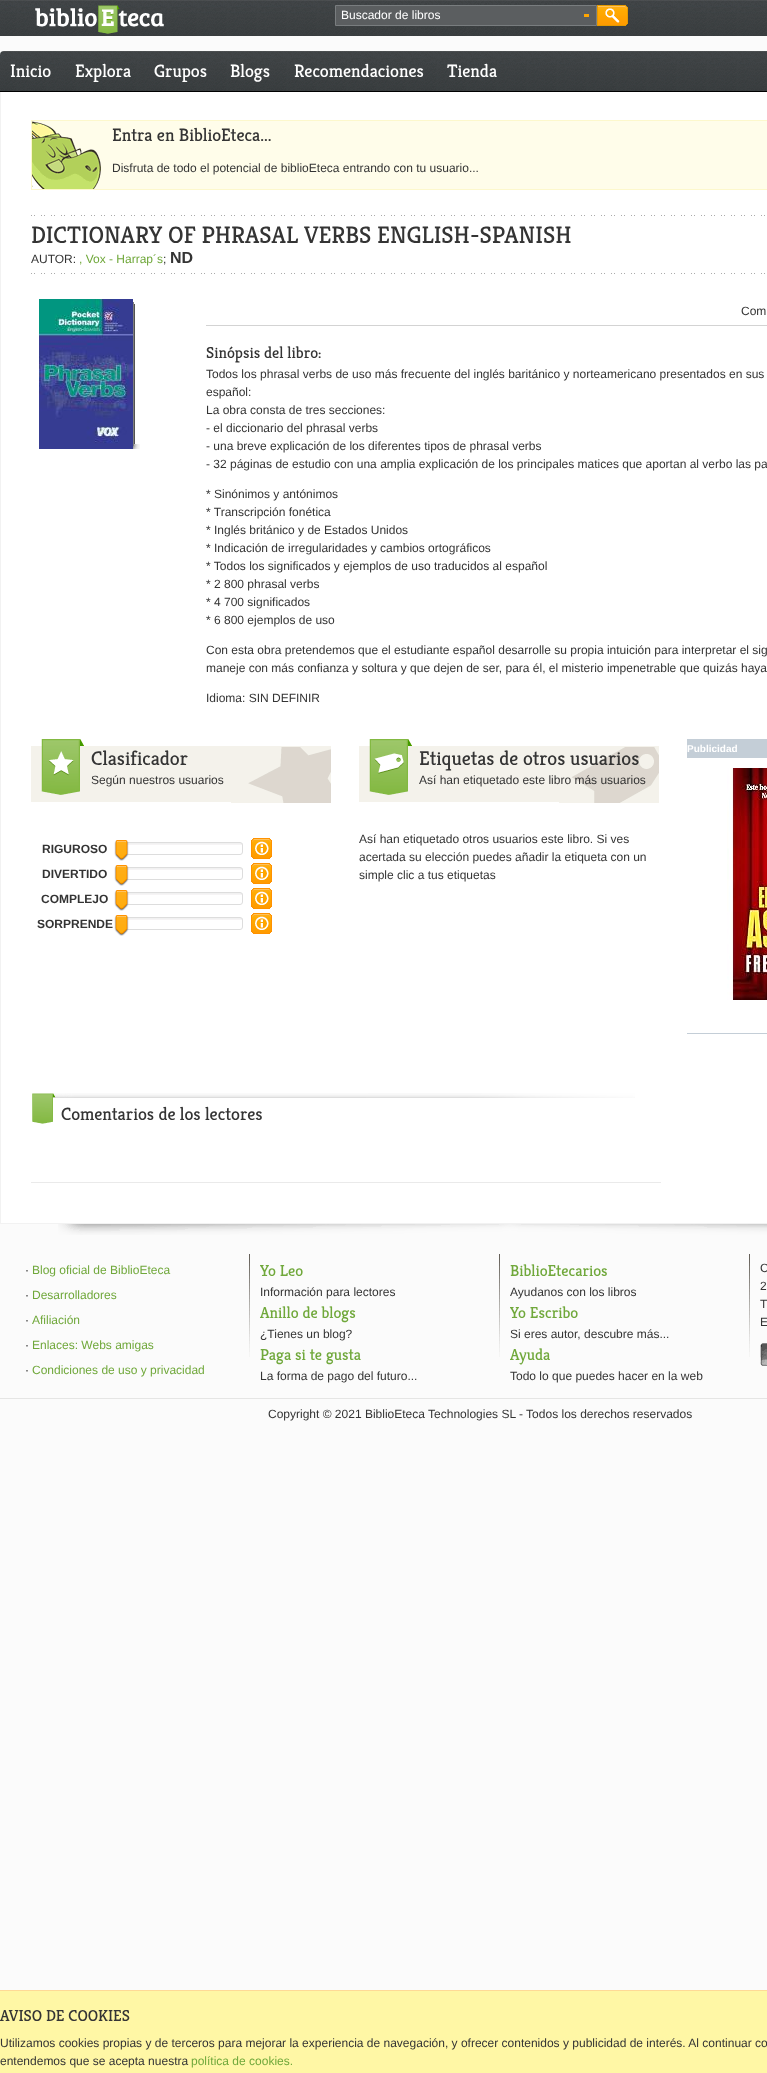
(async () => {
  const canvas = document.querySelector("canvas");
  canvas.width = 767;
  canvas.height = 2073;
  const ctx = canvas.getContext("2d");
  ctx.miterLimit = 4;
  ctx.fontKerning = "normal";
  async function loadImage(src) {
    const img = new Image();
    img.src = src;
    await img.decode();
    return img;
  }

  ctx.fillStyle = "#fbfbfb";
  ctx.fillRect(0, 0, 767, 2073);
  ctx.drawImage(await loadImage("img/1.png"), 0, 0, 767, 36);
  ctx.drawImage(await loadImage("img/2.png"), 35, 5, 129, 29);
  ctx.fillStyle = "#5b5e60";
  ctx.beginPath();
  ctx.rect(335.5, 5.5, 261, 20);
  ctx.fill();
  ctx.strokeStyle = "#797d7f";
  ctx.stroke();
  ctx.fillStyle = "#ffa500";
  ctx.fillRect(584, 14, 5, 3);
  ctx.drawImage(await loadImage("img/3.png"), 597, 5, 31, 21);
  ctx.drawImage(await loadImage("img/4.png"), 0, 51, 767, 41);
  for (const [x, y, w, h, color] of [
    [1, 92, 766, 1131, "#ffffff"],
    [0, 92, 1, 28, "#f2f2f2"],
    [0, 1223, 767, 1, "#f2f2f2"],
    [0, 120, 1, 1104, "#f2f2f2"],
    [101, 121, 666, 68, "#fffdea"],
  ]) {
    ctx.fillStyle = color;
    ctx.fillRect(x, y, w, h);
  }
  ctx.drawImage(await loadImage("img/5.png"), 32, 121, 69, 68);
  ctx.strokeStyle = "#fdf8cc";
  ctx.strokeRect(31.5, 120.5, 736, 69);
  ctx.drawImage(await loadImage("img/6.png"), 31, 215, 734, 1);
  ctx.drawImage(await loadImage("img/6.png"), 31, 273, 734, 1);
  ctx.drawImage(await loadImage("img/7.png"), 39, 299, 101, 150);
  for (const [x, y, w, h, color] of [
    [206, 325, 561, 1, "#d3d3d3"],
    [687, 739, 80, 19, "#c4ced7"],
    [687, 1033, 80, 1, "#c4ced7"],
  ]) {
    ctx.fillStyle = color;
    ctx.fillRect(x, y, w, h);
  }
  ctx.drawImage(await loadImage("img/8.png"), 727, 768, 40, 232);
  ctx.drawImage(await loadImage("img/9.png"), 31, 739, 300, 63);
  ctx.drawImage(await loadImage("img/10.png"), 49, 751, 25, 25);
  ctx.drawImage(await loadImage("img/11.png"), 231, 747, 100, 56);
  ctx.drawImage(await loadImage("img/12.png"), 127, 843, 116, 2);
  ctx.beginPath();
  ctx.roundRect(121.5, 842.5, 121, 12, 2.5);
  ctx.strokeStyle = "#dddddd";
  ctx.stroke();
  ctx.drawImage(await loadImage("img/13.png"), 114, 840, 15, 21);
  ctx.drawImage(await loadImage("img/14.png"), 251, 838, 21, 21);
  ctx.drawImage(await loadImage("img/12.png"), 127, 868, 116, 2);
  ctx.beginPath();
  ctx.roundRect(121.5, 867.5, 121, 12, 2.5);
  ctx.stroke();
  ctx.drawImage(await loadImage("img/13.png"), 114, 865, 15, 21);
  ctx.drawImage(await loadImage("img/14.png"), 251, 863, 21, 21);
  ctx.drawImage(await loadImage("img/12.png"), 127, 893, 116, 2);
  ctx.beginPath();
  ctx.roundRect(121.5, 892.5, 121, 12, 2.5);
  ctx.stroke();
  ctx.drawImage(await loadImage("img/13.png"), 114, 890, 15, 21);
  ctx.drawImage(await loadImage("img/14.png"), 251, 888, 21, 21);
  ctx.drawImage(await loadImage("img/12.png"), 127, 918, 116, 2);
  ctx.beginPath();
  ctx.roundRect(121.5, 917.5, 121, 12, 2.5);
  ctx.stroke();
  ctx.drawImage(await loadImage("img/13.png"), 114, 915, 15, 21);
  ctx.drawImage(await loadImage("img/14.png"), 251, 913, 21, 21);
  ctx.drawImage(await loadImage("img/9.png"), 359, 739, 300, 63);
  ctx.drawImage(await loadImage("img/15.png"), 374, 753, 30, 21);
  ctx.drawImage(await loadImage("img/16.png"), 559, 747, 100, 56);
  ctx.drawImage(await loadImage("img/17.png"), 32, 1093, 603, 31);
  ctx.fillStyle = "#eaeaea";
  ctx.fillRect(31, 1182, 630, 1);
  ctx.drawImage(await loadImage("img/18.png"), 58, 1224, 709, 11);
  ctx.drawImage(await loadImage("img/19.png"), 249, 1254, 1, 103);
  ctx.drawImage(await loadImage("img/19.png"), 499, 1254, 1, 103);
  ctx.drawImage(await loadImage("img/19.png"), 749, 1254, 1, 103);
  ctx.drawImage(await loadImage("img/20.png"), 760, 1343, 7, 23);
  for (const [x, y, w, h, color] of [
    [0, 1398, 767, 1, "#e5e5e4"],
    [0, 1991, 767, 82, "#fff7a5"],
    [0, 1990, 767, 1, "#ffda96"],
  ]) {
    ctx.fillStyle = color;
    ctx.fillRect(x, y, w, h);
  }
  ctx.font = "12px Liberation Sans";
  ctx.fillStyle = "#ffffff";
  ctx.fillText("Buscador de libros", 341, 19);
  ctx.font = "300 18px Kreon";
  for (const [text, x, y] of [
    ["Inicio", 10, 77],
    ["Explora", 75, 77],
    ["Grupos", 154, 77],
    ["Blogs", 230, 77],
    ["Recomendaciones", 294, 77],
    ["Tienda", 447, 77],
  ]) {
    ctx.fillText(text, x, y);
  }
  ctx.fillStyle = "#343434";
  ctx.fillText("Entra en BiblioEteca...", 112, 141);
  ctx.font = "12px Liberation Sans";
  ctx.fillText("Disfruta de todo el potencial de biblioEteca entrando con tu usuario...", 112, 172);
  ctx.font = "300 24px Kreon";
  ctx.fillText("DICTIONARY OF PHRASAL VERBS ENGLISH-SPANISH", 31, 243);
  ctx.font = "12px Liberation Sans";
  ctx.fillText("AUTOR:", 31, 263);
  ctx.fillStyle = "#70a83b";
  ctx.fillText(", Vox - Harrap´s", 79, 263);
  ctx.fillStyle = "#343434";
  ctx.fillText(";", 163, 263);
  ctx.font = "bold 16px Liberation Sans";
  ctx.fillText("ND", 170, 263);
  ctx.font = "12px Liberation Sans";
  ctx.fillText("Com", 741, 315);
  ctx.font = "300 16px Kreon";
  ctx.fillText("Sinópsis del libro:", 206, 358);
  ctx.font = "12px Liberation Sans";
  for (const [text, x, y] of [
    ["Todos los phrasal verbs de uso más frecuente del inglés baritánico y norteamericano presentados en sus", 206, 378],
    ["español:", 206, 396],
    ["La obra consta de tres secciones:", 206, 414],
    ["- el diccionario del phrasal verbs", 206, 432],
    ["- una breve explicación de los diferentes tipos de phrasal verbs", 206, 450],
    ["- 32 páginas de estudio con una amplia explicación de los principales matices que aportan al verbo las pa", 206, 468],
    ["* Sinónimos y antónimos", 206, 498],
    ["* Transcripción fonética", 206, 516],
    ["* Inglés británico y de Estados Unidos", 206, 534],
    ["* Indicación de irregularidades y cambios ortográficos", 206, 552],
    ["* Todos los significados y ejemplos de uso traducidos al español", 206, 570],
    ["* 2 800 phrasal verbs", 206, 588],
    ["* 4 700 significados", 206, 606],
    ["* 6 800 ejemplos de uso", 206, 624],
    ["Con esta obra pretendemos que el estudiante español desarrolle su propia intuición para interpretar el sig", 206, 654],
    ["maneje con más confianza y soltura y que dejen de ser, para él, el misterio impenetrable que quizás haya", 206, 672],
    ["Idioma: SIN DEFINIR", 206, 702],
  ]) {
    ctx.fillText(text, x, y);
  }
  ctx.font = "bold 10px Liberation Sans";
  ctx.fillStyle = "#ffffff";
  ctx.fillText("Publicidad", 687, 752);
  ctx.font = "300 20px Kreon";
  ctx.fillStyle = "#343434";
  ctx.fillText("Clasificador", 91, 765);
  ctx.font = "12px Liberation Sans";
  ctx.fillText("Según nuestros usuarios", 91, 784);
  ctx.font = "bold 12px Liberation Sans";
  for (const [text, x, y] of [
    ["RIGUROSO", 42, 853],
    ["DIVERTIDO", 42, 878],
    ["COMPLEJO", 41, 903],
    ["SORPRENDE", 37, 928],
  ]) {
    ctx.fillText(text, x, y);
  }
  ctx.font = "300 20px Kreon";
  ctx.fillText("Etiquetas de otros usuarios", 419, 765);
  ctx.font = "12px Liberation Sans";
  for (const [text, x, y] of [
    ["Así han etiquetado este libro más usuarios", 419, 784],
    ["Así han etiquetado otros usuarios este libro. Si ves", 359, 843],
    ["acertada su elección puedes añadir la etiqueta con un", 359, 861],
    ["simple clic a tus etiquetas", 359, 879],
  ]) {
    ctx.fillText(text, x, y);
  }
  ctx.font = "300 18px Kreon";
  ctx.fillText("Comentarios de los lectores", 61, 1120);
  ctx.font = "12px Liberation Sans";
  ctx.fillText("·", 25, 1274);
  ctx.fillStyle = "#70a83b";
  ctx.fillText("Blog oficial de BiblioEteca", 32, 1274);
  ctx.fillStyle = "#343434";
  ctx.fillText("·", 25, 1299);
  ctx.fillStyle = "#70a83b";
  ctx.fillText("Desarrolladores", 32, 1299);
  ctx.fillStyle = "#343434";
  ctx.fillText("·", 25, 1324);
  ctx.fillStyle = "#70a83b";
  ctx.fillText("Afiliación", 32, 1324);
  ctx.fillStyle = "#343434";
  ctx.fillText("·", 25, 1349);
  ctx.fillStyle = "#70a83b";
  ctx.fillText("Enlaces: Webs amigas", 32, 1349);
  ctx.fillStyle = "#343434";
  ctx.fillText("·", 25, 1374);
  ctx.fillStyle = "#70a83b";
  ctx.fillText("Condiciones de uso y privacidad", 32, 1374);
  ctx.font = "300 16px Kreon";
  ctx.fillText("Yo Leo", 260, 1276);
  ctx.font = "12px Liberation Sans";
  ctx.fillStyle = "#343434";
  ctx.fillText("Información para lectores", 260, 1296);
  ctx.font = "300 16px Kreon";
  ctx.fillStyle = "#70a83b";
  ctx.fillText("Anillo de blogs", 260, 1318);
  ctx.font = "12px Liberation Sans";
  ctx.fillStyle = "#343434";
  ctx.fillText("¿Tienes un blog?", 260, 1338);
  ctx.font = "300 16px Kreon";
  ctx.fillStyle = "#70a83b";
  ctx.fillText("Paga si te gusta", 260, 1360);
  ctx.font = "12px Liberation Sans";
  ctx.fillStyle = "#343434";
  ctx.fillText("La forma de pago del futuro...", 260, 1380);
  ctx.font = "300 16px Kreon";
  ctx.fillStyle = "#70a83b";
  ctx.fillText("BiblioEtecarios", 510, 1276);
  ctx.font = "12px Liberation Sans";
  ctx.fillStyle = "#343434";
  ctx.fillText("Ayudanos con los libros", 510, 1296);
  ctx.font = "300 16px Kreon";
  ctx.fillStyle = "#70a83b";
  ctx.fillText("Yo Escribo", 510, 1318);
  ctx.font = "12px Liberation Sans";
  ctx.fillStyle = "#343434";
  ctx.fillText("Si eres autor, descubre más...", 510, 1338);
  ctx.font = "300 16px Kreon";
  ctx.fillStyle = "#70a83b";
  ctx.fillText("Ayuda", 510, 1360);
  ctx.font = "12px Liberation Sans";
  ctx.fillStyle = "#343434";
  for (const [text, x, y] of [
    ["Todo lo que puedes hacer en la web", 510, 1380],
    ["C", 760, 1272],
    ["2", 760, 1290],
    ["T", 760, 1308],
    ["E", 760, 1326],
    ["Copyright © 2021 BiblioEteca Technologies SL - Todos los derechos reservados", 268, 1418],
  ]) {
    ctx.fillText(text, x, y);
  }
  ctx.font = "300 16px Kreon";
  ctx.fillText("AVISO DE COOKIES", 0, 2021);
  ctx.font = "12px Liberation Sans";
  ctx.fillText("Utilizamos cookies propias y de terceros para mejorar la experiencia de navegación, y ofrecer contenidos y publicidad de interés. Al continuar co", 0, 2047);
  ctx.fillText("entendemos que se acepta nuestra", 0, 2065);
  ctx.fillStyle = "#70a83b";
  ctx.fillText("política de cookies.", 191, 2065);
})();
